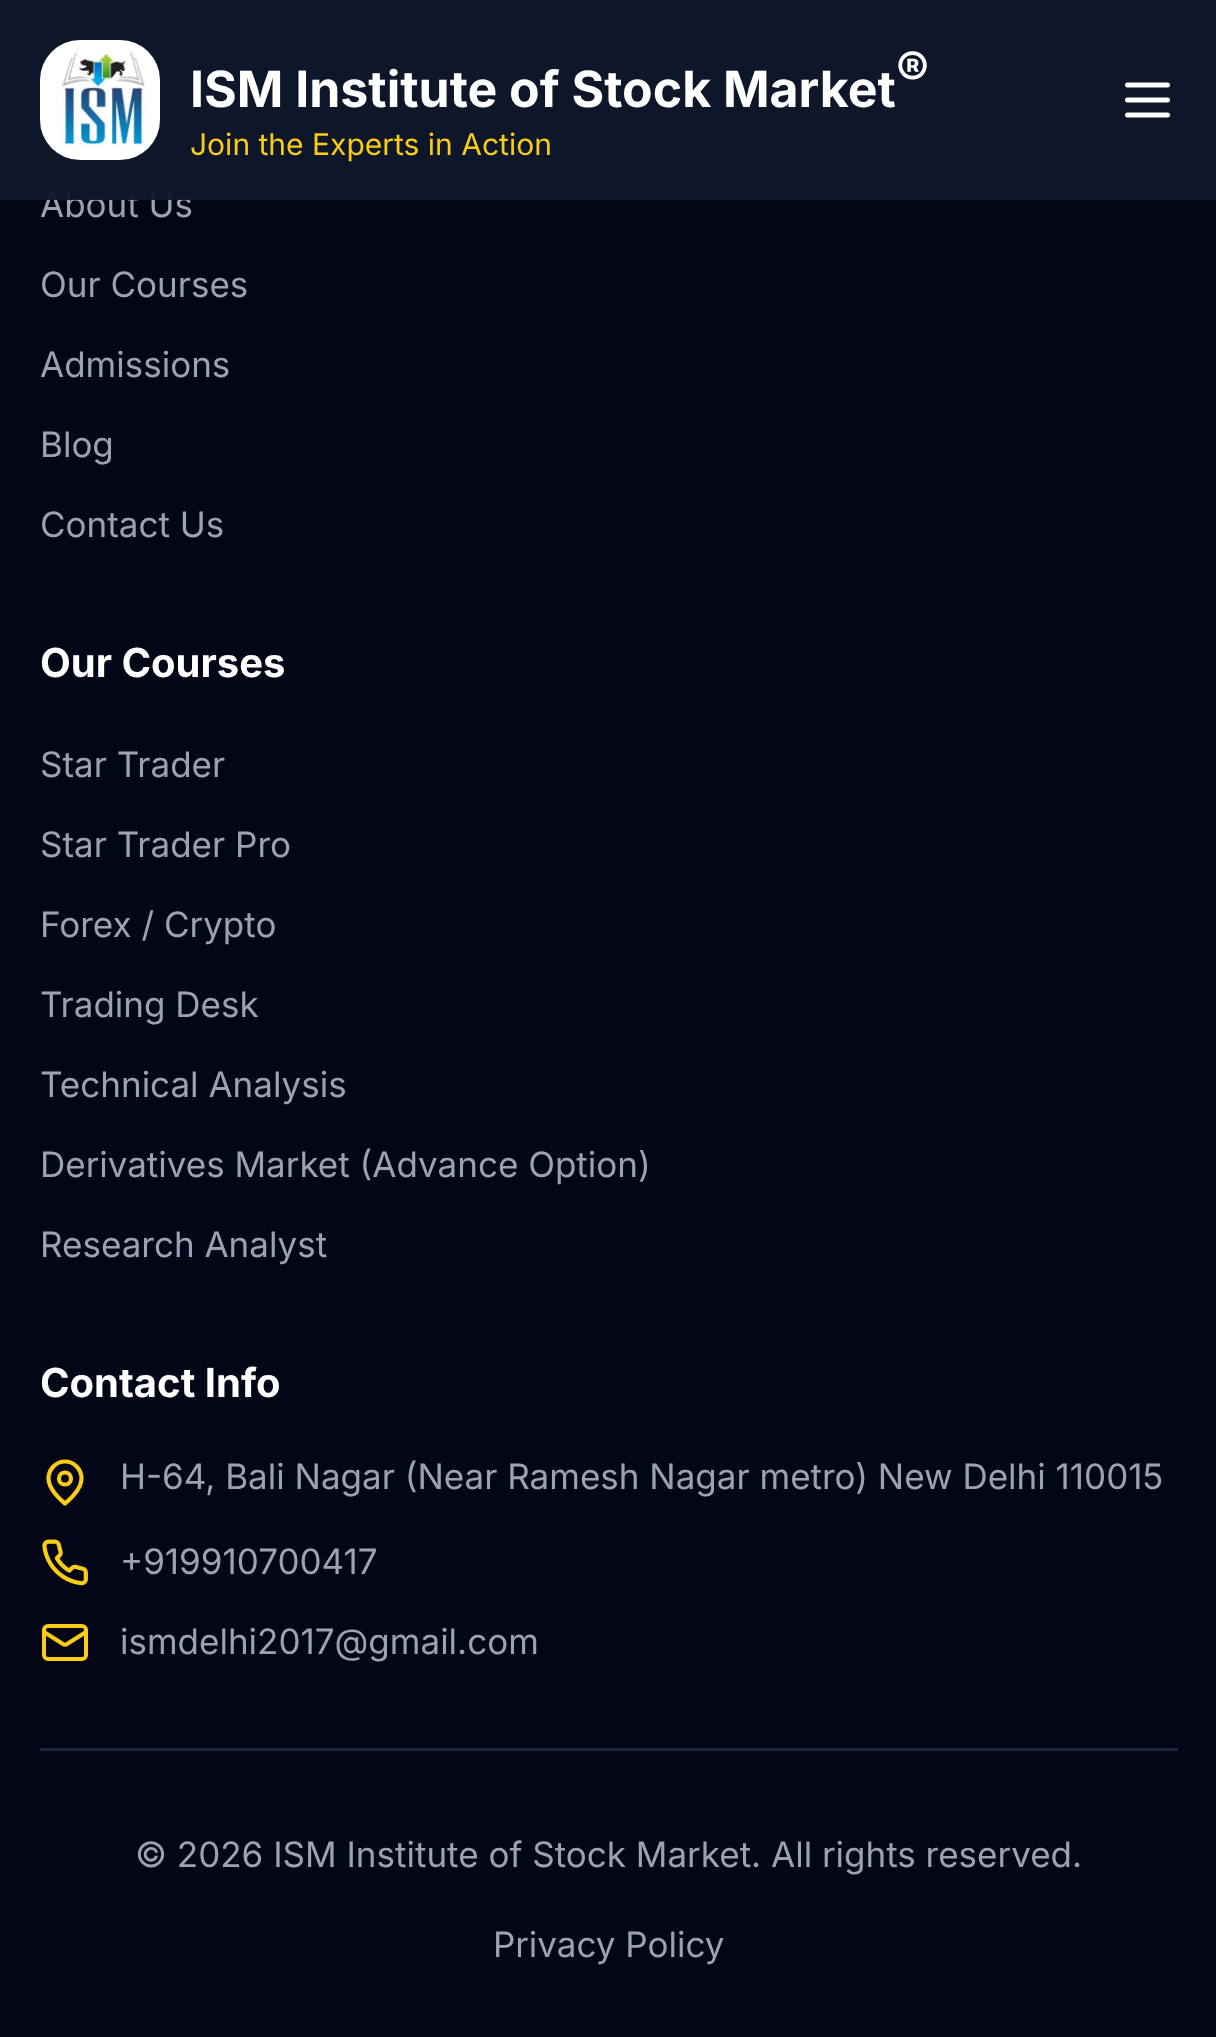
(async () => {
  const canvas = document.querySelector("canvas");
  canvas.width = 1216;
  canvas.height = 2037;
  const ctx = canvas.getContext("2d");
  ctx.miterLimit = 4;
  ctx.fontKerning = "normal";
  async function loadImage(src) {
    const img = new Image();
    img.src = src;
    await img.decode();
    return img;
  }
  let path;

  ctx.fillStyle = "#020617";
  ctx.fillRect(0, 0, 1216, 2037);
  ctx.save();
  ctx.beginPath();
  ctx.rect(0, 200, 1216, 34);
  ctx.clip();
  ctx.fillStyle = "rgba(0, 0, 0, 0.1)";
  ctx.filter = "blur(19px)";
  ctx.beginPath();
  ctx.rect(8, 33, 1202, 185);
  ctx.fill();
  ctx.filter = "none";
  ctx.restore();
  path = new Path2D("M81.5 1478.5C81.5 1491 65 1503.5 65 1503.5C65 1503.5 48.5 1491 48.5 1478.5C48.5 1469 56 1461.5 65 1461.5C74 1461.5 81.5 1469 81.5 1478.5Z");
  ctx.strokeStyle = "#facc15";
  ctx.lineWidth = 4.2;
  ctx.lineCap = "round";
  ctx.lineJoin = "round";
  ctx.stroke(path);
  ctx.beginPath();
  ctx.arc(65, 1478.5, 6, 0, Math.PI * 2);
  ctx.stroke();
  ctx.drawImage(await loadImage("img/2.png"), 42, 1539, 46, 47);
  ctx.beginPath();
  ctx.roundRect(44, 1626, 42, 33, 4);
  ctx.lineWidth = 4;
  ctx.lineJoin = "miter";
  ctx.stroke();
  path = new Path2D("M86 1632L67 1644C66 1645 64 1645 63 1644L44 1632");
  ctx.lineWidth = 4.2;
  ctx.lineJoin = "round";
  ctx.stroke(path);
  ctx.fillStyle = "#1e293b";
  ctx.fillRect(40, 1748, 1138, 3);
  ctx.font = "35px Inter";
  ctx.fillStyle = "#9ca3af";
  ctx.fillText("About Us", 40, 217);
  ctx.fillStyle = "rgba(15, 23, 42, 0.95)";
  ctx.fillRect(0, 0, 1216, 200);
  path = new Path2D("M1127.5 100H1167.5M1127.5 85H1167.5M1127.5 115H1167.5");
  ctx.strokeStyle = "#ffffff";
  ctx.lineWidth = 5;
  ctx.stroke(path);
  ctx.font = "30px Inter";
  ctx.fillStyle = "#facc15";
  ctx.fillText("Join the Experts in Action", 190, 155);
  ctx.font = "bold 50px Inter";
  ctx.fillStyle = "#ffffff";
  ctx.fillText("®", 896, 88);
  ctx.fillText("ISM Institute of Stock Market", 190, 107);
  ctx.drawImage(await loadImage("img/1.png"), 40, 40, 120, 120);
  ctx.font = "35px Inter";
  ctx.fillStyle = "#9ca3af";
  for (const [text, x, y] of [
    ["Our Courses", 40, 297],
    ["Admissions", 40, 377],
    ["Blog", 40, 457],
    ["Contact Us", 40, 537],
  ]) {
    ctx.fillText(text, x, y);
  }
  ctx.font = "bold 40px Inter";
  ctx.fillStyle = "#ffffff";
  ctx.fillText("Our Courses", 40, 677);
  ctx.font = "35px Inter";
  ctx.fillStyle = "#9ca3af";
  for (const [text, x, y] of [
    ["Star Trader", 40, 777],
    ["Star Trader Pro", 40, 857],
    ["Forex / Crypto", 40, 937],
    ["Trading Desk", 40, 1017],
    ["Technical Analysis", 40, 1097],
    ["Derivatives Market (Advance Option)", 40, 1177],
    ["Research Analyst", 40, 1257],
  ]) {
    ctx.fillText(text, x, y);
  }
  ctx.font = "bold 40px Inter";
  ctx.fillStyle = "#ffffff";
  ctx.fillText("Contact Info", 40, 1397);
  ctx.font = "35px Inter";
  ctx.fillStyle = "#9ca3af";
  for (const [text, x, y] of [
    ["H-64, Bali Nagar (Near Ramesh Nagar metro) New Delhi 110015", 120, 1489],
    ["+919910700417", 120, 1574],
    ["ismdelhi2017@gmail.com", 120, 1654],
    ["© 2026 ISM Institute of Stock Market. All rights reserved.", 135, 1867],
    ["Privacy Policy", 493, 1957],
  ]) {
    ctx.fillText(text, x, y);
  }
})();
